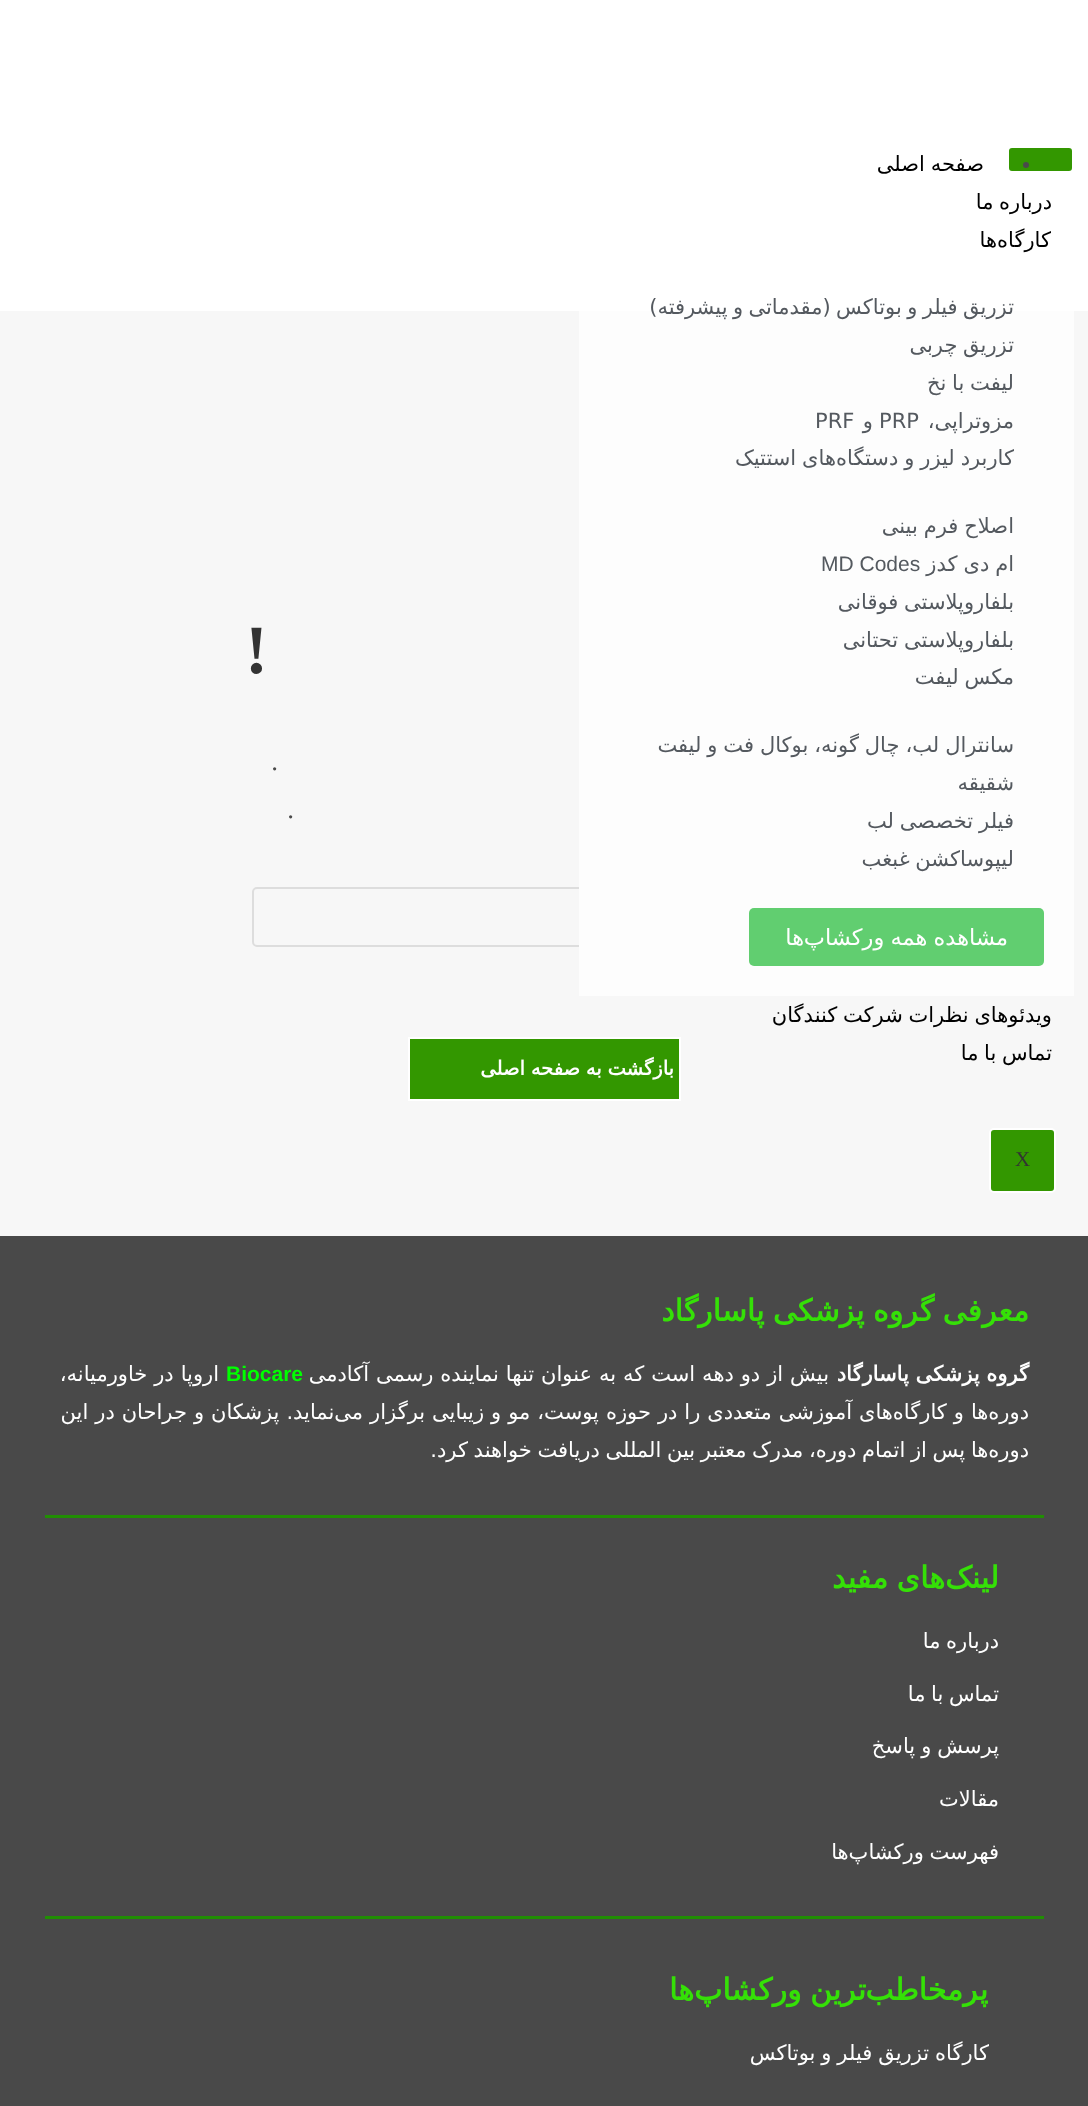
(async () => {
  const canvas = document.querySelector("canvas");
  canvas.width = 1088;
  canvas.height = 2106;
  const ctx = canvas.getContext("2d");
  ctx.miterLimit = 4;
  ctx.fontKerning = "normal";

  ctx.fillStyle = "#f7f7f7";
  ctx.fillRect(0, 0, 1088, 2106);
  ctx.fillStyle = "#ffffff";
  ctx.fillRect(0, 0, 1088, 311);
  ctx.fillStyle = "#339700";
  ctx.beginPath();
  ctx.roundRect(1008, 147, 65, 25, 4);
  ctx.fill();
  ctx.strokeStyle = "#ffffff";
  ctx.lineWidth = 2;
  ctx.stroke();
  ctx.fillStyle = "#4a4a4a";
  ctx.beginPath();
  ctx.arc(1026, 165, 3, 0, Math.PI * 2);
  ctx.fill();
  ctx.beginPath();
  ctx.roundRect(253, 888, 583, 58, 4);
  ctx.strokeStyle = "#dddddd";
  ctx.stroke();
  ctx.fillStyle = "#fdfdfd";
  ctx.fillRect(579, 311, 495, 685);
  ctx.fillStyle = "#61ce70";
  ctx.beginPath();
  ctx.roundRect(749, 908, 295, 58, 5);
  ctx.fill();
  ctx.fillStyle = "#339700";
  ctx.beginPath();
  ctx.roundRect(990, 1129, 65, 63, 4);
  ctx.fill();
  ctx.strokeStyle = "#ffffff";
  ctx.stroke();
  ctx.beginPath();
  ctx.rect(409, 1038, 271, 62);
  ctx.fill();
  ctx.stroke();
  for (const [x, y, w, h, color] of [
    [0, 1236, 1088, 870, "#494949"],
    [45, 1515, 999, 3, "#218e04"],
    [45, 1916, 999, 3, "#218e04"],
  ]) {
    ctx.fillStyle = color;
    ctx.fillRect(x, y, w, h);
  }
  ctx.wordSpacing = "-0.75px";
  ctx.direction = "rtl";
  ctx.font = "21px DejaVu Sans";
  ctx.fillStyle = "#000000";
  ctx.fillText("صفحه اصلی", 984, 171);
  ctx.wordSpacing = "-1px";
  ctx.fillText("درباره ما", 1052, 209);
  ctx.wordSpacing = "0px";
  ctx.fillText("کارگاه‌ها", 1051, 247);
  ctx.wordSpacing = "-1.25px";
  ctx.fillStyle = "#54595f";
  ctx.fillText("تزریق فیلر و بوتاکس (مقدماتی و پیشرفته)", 1014, 314);
  ctx.wordSpacing = "-1px";
  ctx.fillText("تزریق چربی", 1014, 352);
  ctx.fillText("لیفت با نخ", 1014, 390);
  ctx.wordSpacing = "0px";
  ctx.fillText("مزوتراپی،", 1014, 428);
  ctx.direction = "ltr";
  ctx.fillText("PRP", 879, 428);
  ctx.direction = "rtl";
  ctx.fillText("و", 873, 428);
  ctx.direction = "ltr";
  ctx.fillText("PRF", 815, 428);
  ctx.wordSpacing = "-0.75px";
  ctx.direction = "rtl";
  for (const [text, x, y] of [
    ["کاربرد لیزر و دستگاه‌های استتیک", 1014, 465],
    ["اصلاح فرم بینی", 1014, 533],
    ["ام دی کدز", 1014, 571],
  ]) {
    ctx.fillText(text, x, y);
  }
  ctx.wordSpacing = "0px";
  ctx.direction = "ltr";
  ctx.font = "21px Liberation Sans";
  ctx.fillText("MD Codes", 821, 571);
  ctx.wordSpacing = "-1px";
  ctx.direction = "rtl";
  ctx.font = "21px DejaVu Sans";
  ctx.fillText("بلفاروپلاستی فوقانی", 1014, 609);
  ctx.wordSpacing = "-0.75px";
  ctx.fillText("بلفاروپلاستی تحتانی", 1014, 647);
  ctx.wordSpacing = "-1px";
  ctx.fillText("مکس لیفت", 1014, 684);
  ctx.wordSpacing = "-0.75px";
  ctx.fillText("سانترال لب، چال گونه، بوکال فت و لیفت", 1014, 752);
  ctx.wordSpacing = "0px";
  ctx.fillText("شقیقه", 1014, 790);
  ctx.wordSpacing = "-0.75px";
  ctx.fillText("فیلر تخصصی لب", 1014, 828);
  ctx.wordSpacing = "-1px";
  ctx.fillText("لیپوساکشن غبغب", 1014, 866);
  ctx.font = "22.5px DejaVu Sans";
  ctx.fillStyle = "#ffffff";
  ctx.fillText("مشاهده همه ورکشاپ", 1008, 945);
  ctx.wordSpacing = "0px";
  ctx.fillText("ها", 804, 945);
  ctx.wordSpacing = "-1px";
  ctx.font = "21px DejaVu Sans";
  ctx.fillStyle = "#000000";
  ctx.fillText("ویدئوهای نظرات شرکت کنندگان", 1052, 1022);
  ctx.fillText("تماس با ما", 1052, 1060);
  ctx.wordSpacing = "0px";
  ctx.direction = "ltr";
  ctx.font = "21px Liberation Serif";
  ctx.fillStyle = "#333333";
  ctx.fillText("X", 1015, 1166);
  ctx.direction = "rtl";
  ctx.font = "bold 69px Liberation Serif";
  ctx.fillText("!", 268, 673);
  ctx.font = "27px Liberation Serif";
  ctx.fillStyle = "#4a4a4a";
  ctx.fillText(".", 278, 770);
  ctx.fillText(".", 294, 818);
  ctx.letterSpacing = "2px";
  ctx.wordSpacing = "-2.5px";
  ctx.font = "bold 19.5px DejaVu Sans";
  ctx.fillStyle = "#ffffff";
  ctx.fillText("بازگشت به صفحه اصلی", 674, 1075);
  ctx.letterSpacing = "0px";
  ctx.wordSpacing = "-1px";
  ctx.font = "bold 30px DejaVu Sans";
  ctx.fillStyle = "#35e007";
  ctx.fillText("معرفی گروه پزشکی پاسارگاد", 1029, 1321);
  ctx.wordSpacing = "0px";
  ctx.font = "bold 21px DejaVu Sans";
  ctx.fillStyle = "#ffffff";
  ctx.fillText("گروه پزشکی پاسارگاد", 1029, 1381);
  ctx.wordSpacing = "0.25px";
  ctx.font = "21px DejaVu Sans";
  ctx.fillText("بیش از دو دهه است که به عنوان تنها نماینده رسمی آکادمی", 829, 1381);
  ctx.wordSpacing = "0px";
  ctx.direction = "ltr";
  ctx.font = "bold 21px Liberation Sans";
  ctx.fillStyle = "#00ff00";
  ctx.fillText("Biocare", 226, 1381);
  ctx.wordSpacing = "0.25px";
  ctx.direction = "rtl";
  ctx.font = "21px DejaVu Sans";
  ctx.fillStyle = "#ffffff";
  ctx.fillText("اروپا در خاورمیانه،", 219, 1381);
  ctx.wordSpacing = "0.3px";
  ctx.fillText("دوره‌ها و کارگاه‌های آموزشی متعددی را در حوزه پوست، مو و زیبایی برگزار می‌نماید. پزشکان و جراحان در این", 1029, 1419);
  ctx.wordSpacing = "-1px";
  ctx.fillText("دوره‌ها پس از اتمام دوره، مدرک معتبر بین المللی دریافت خواهند کرد.", 1029, 1457);
  ctx.wordSpacing = "0px";
  ctx.font = "bold 30px DejaVu Sans";
  ctx.fillStyle = "#35e007";
  ctx.fillText("لینک", 999, 1588);
  ctx.wordSpacing = "-1px";
  ctx.fillText("های مفید", 945, 1588);
  ctx.font = "21px DejaVu Sans";
  ctx.fillStyle = "#ffffff";
  ctx.fillText("درباره ما", 999, 1648);
  ctx.fillText("تماس با ما", 999, 1701);
  ctx.wordSpacing = "-0.75px";
  ctx.fillText("پرسش و پاسخ", 999, 1753);
  ctx.wordSpacing = "0px";
  ctx.fillText("مقالات", 999, 1806);
  ctx.wordSpacing = "-1px";
  ctx.fillText("فهرست ورکشاپ‌ها", 999, 1859);
  ctx.wordSpacing = "0px";
  ctx.font = "bold 30px DejaVu Sans";
  ctx.fillStyle = "#35e007";
  ctx.fillText("پرمخاطب", 988, 2000);
  ctx.wordSpacing = "-1px";
  ctx.fillText("ترین ورکشاپ", 866, 2000);
  ctx.wordSpacing = "0px";
  ctx.fillText("ها", 694, 2000);
  ctx.wordSpacing = "-0.75px";
  ctx.font = "21px DejaVu Sans";
  ctx.fillStyle = "#ffffff";
  ctx.fillText("کارگاه تزریق فیلر و بوتاکس", 989, 2060);
})();
